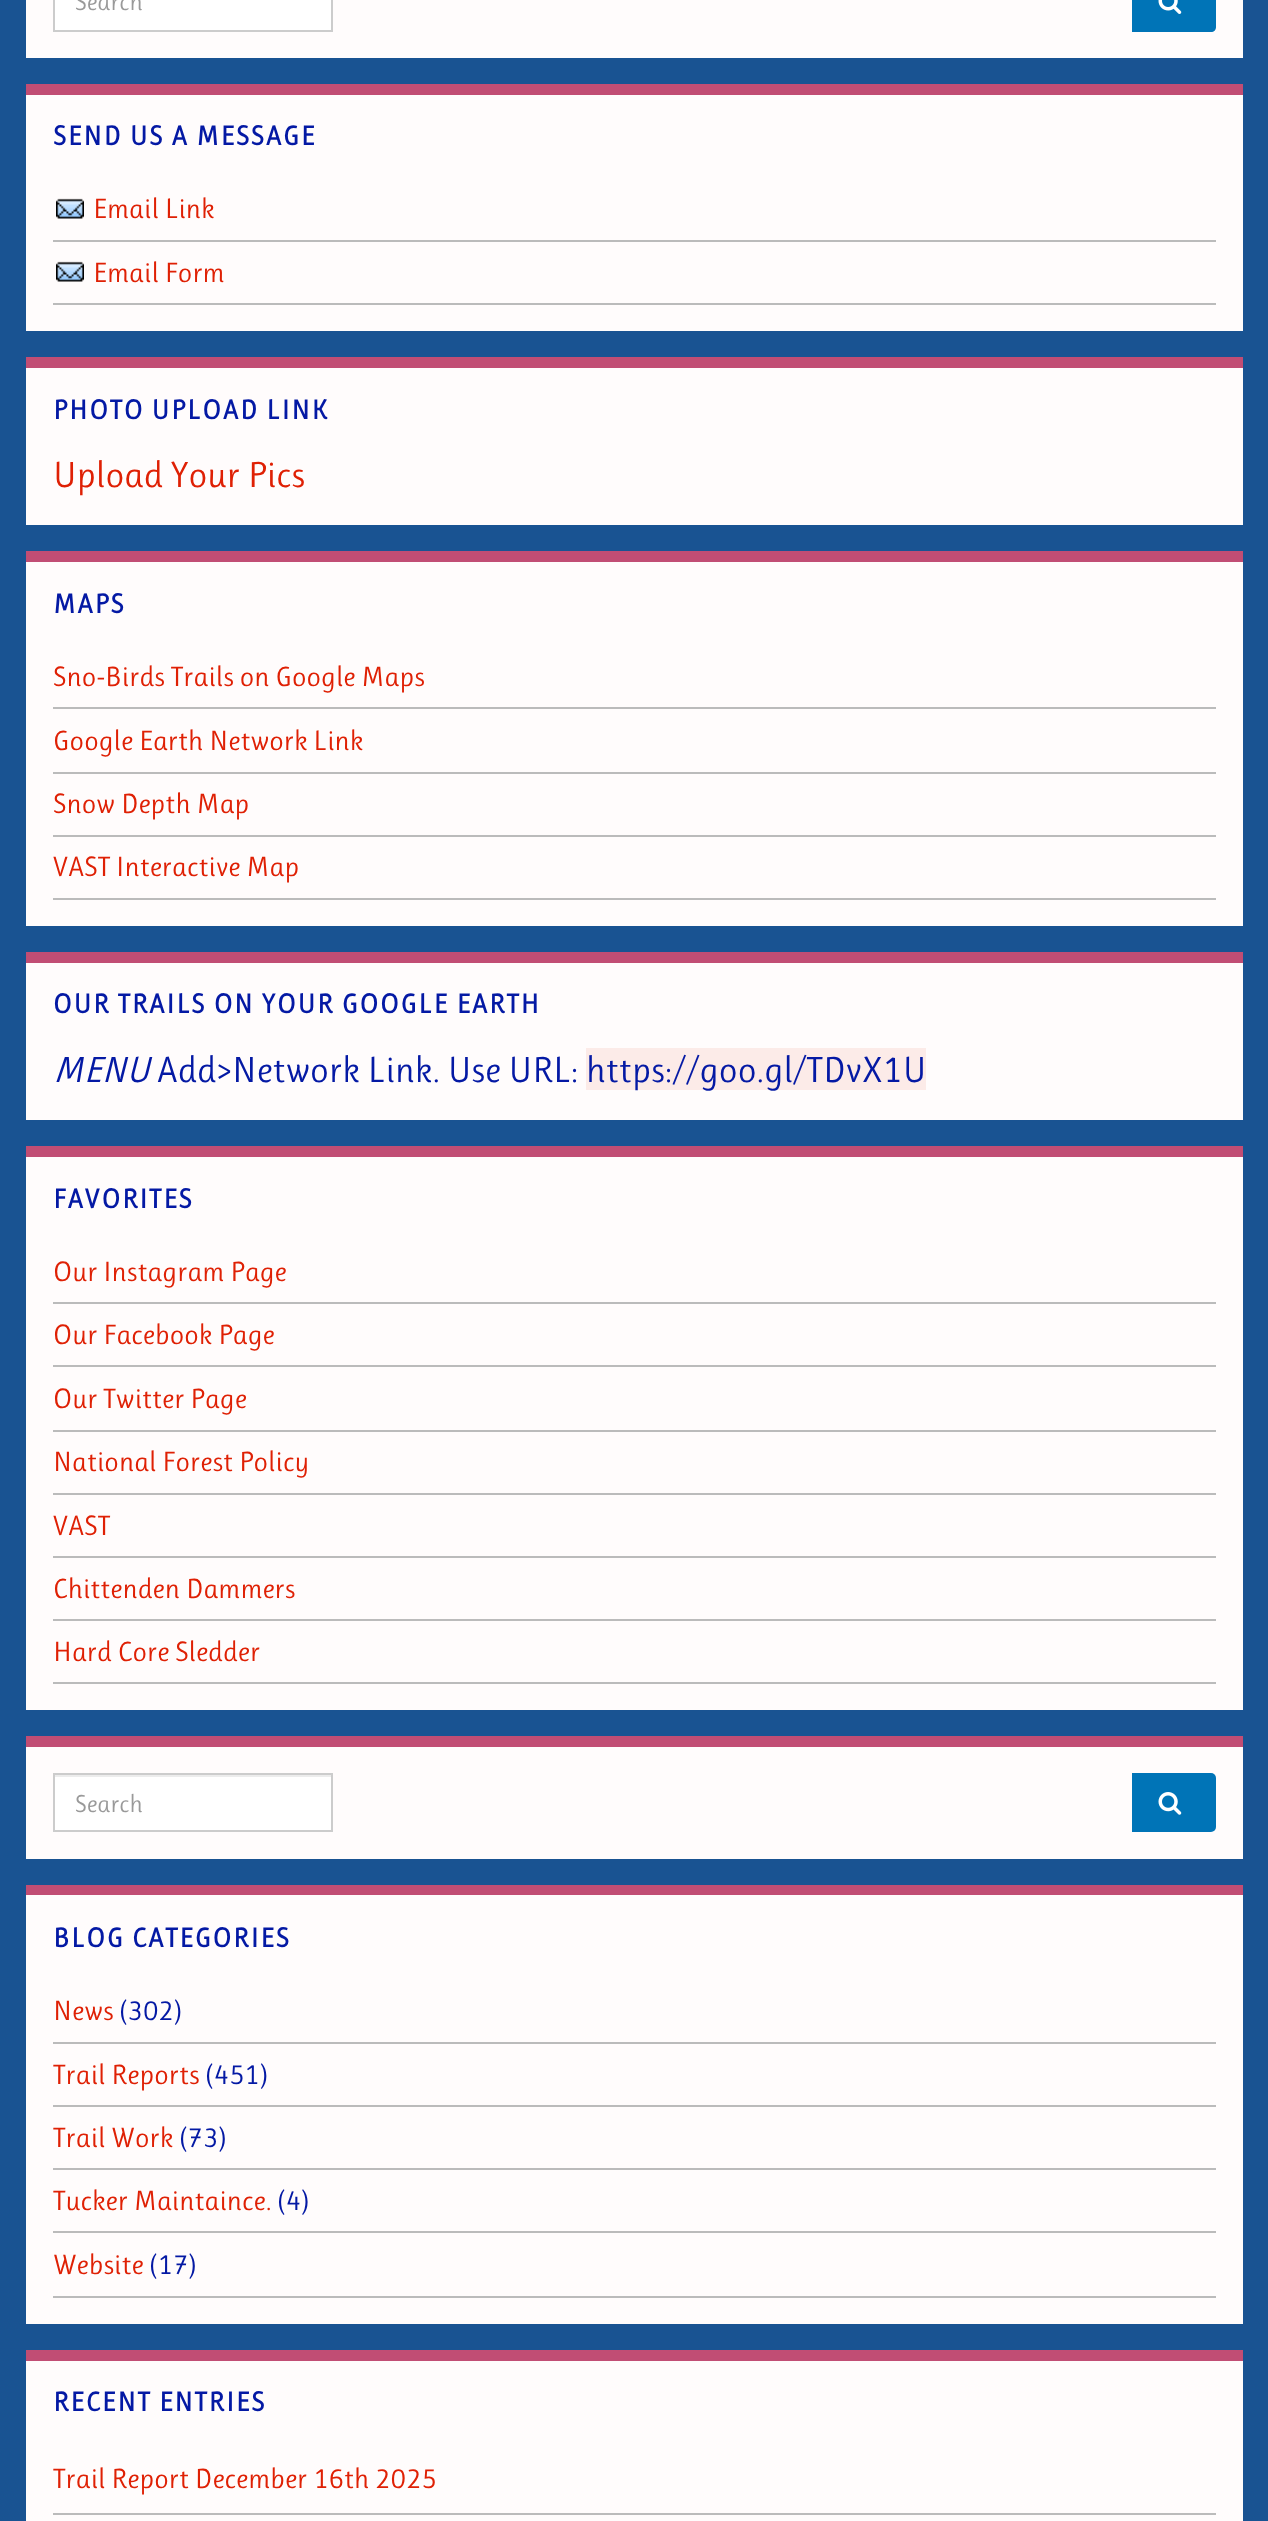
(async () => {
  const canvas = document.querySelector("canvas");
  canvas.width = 1268;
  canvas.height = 2521;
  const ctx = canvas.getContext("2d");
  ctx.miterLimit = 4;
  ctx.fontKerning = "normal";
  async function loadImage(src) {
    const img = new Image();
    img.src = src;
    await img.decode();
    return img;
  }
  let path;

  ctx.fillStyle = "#195392";
  ctx.fillRect(0, 0, 1268, 2521);
  ctx.fillStyle = "#fffcfc";
  ctx.fillRect(26, 0, 1217, 58);
  ctx.fillStyle = "#ffffff";
  ctx.beginPath();
  ctx.rect(54, -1, 278, 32);
  ctx.fill();
  ctx.strokeStyle = "#cccccc";
  ctx.lineWidth = 2;
  ctx.stroke();
  ctx.fillStyle = "#0074b7";
  path = new Path2D("M1132-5H1211C1214-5 1216-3 1216 0V27C1216 30 1214 32 1211 32H1132Z");
  ctx.fill(path);
  ctx.drawImage(await loadImage("img/1.png"), 1158, 0, 24, 14);
  for (const [x, y, w, h, color] of [
    [26, 95, 1217, 236, "#fffcfc"],
    [26, 84, 1217, 11, "#c14d74"],
    [53, 240, 1163, 2, "#bbbbbb"],
  ]) {
    ctx.fillStyle = color;
    ctx.fillRect(x, y, w, h);
  }
  ctx.drawImage(await loadImage("img/2.png"), 56, 198, 28, 21);
  ctx.fillRect(53, 303, 1163, 2);
  ctx.drawImage(await loadImage("img/2.png"), 56, 261, 28, 21);
  for (const [x, y, w, h, color] of [
    [26, 368, 1217, 157, "#fffcfc"],
    [26, 357, 1217, 11, "#c14d74"],
    [26, 562, 1217, 364, "#fffcfc"],
    [26, 551, 1217, 11, "#c14d74"],
    [53, 707, 1163, 2, "#bbbbbb"],
    [53, 772, 1163, 2, "#bbbbbb"],
    [53, 835, 1163, 2, "#bbbbbb"],
    [53, 898, 1163, 2, "#bbbbbb"],
    [26, 963, 1217, 157, "#fffcfc"],
    [26, 952, 1217, 11, "#c14d74"],
    [586, 1048, 340, 42, "#fcebe8"],
    [26, 1157, 1217, 553, "#fffcfc"],
    [26, 1146, 1217, 11, "#c14d74"],
    [53, 1302, 1163, 2, "#bbbbbb"],
    [53, 1365, 1163, 2, "#bbbbbb"],
    [53, 1430, 1163, 2, "#bbbbbb"],
    [53, 1493, 1163, 2, "#bbbbbb"],
    [53, 1556, 1163, 2, "#bbbbbb"],
    [53, 1619, 1163, 2, "#bbbbbb"],
    [53, 1682, 1163, 2, "#bbbbbb"],
    [26, 1747, 1217, 112, "#fffcfc"],
    [26, 1736, 1217, 11, "#c14d74"],
    [55, 1777, 276, 53, "#ffffff"],
    [54, 1775, 277, 2, "#ececec"],
  ]) {
    ctx.fillStyle = color;
    ctx.fillRect(x, y, w, h);
  }
  ctx.strokeRect(54, 1774, 278, 57);
  ctx.fillStyle = "#0074b7";
  ctx.beginPath();
  ctx.roundRect(1132, 1773, 84, 59, [0, 5, 5, 0]);
  ctx.fill();
  ctx.drawImage(await loadImage("img/3.png"), 1158, 1792, 24, 23);
  for (const [x, y, w, h, color] of [
    [26, 1895, 1217, 429, "#fffcfc"],
    [26, 1885, 1217, 10, "#c14d74"],
    [53, 2042, 1163, 2, "#bbbbbb"],
    [53, 2105, 1163, 2, "#bbbbbb"],
    [53, 2168, 1163, 2, "#bbbbbb"],
    [53, 2231, 1163, 2, "#bbbbbb"],
    [53, 2296, 1163, 2, "#bbbbbb"],
    [26, 2361, 1217, 160, "#fffcfc"],
    [26, 2350, 1217, 11, "#c14d74"],
    [53, 2513, 1163, 2, "#bbbbbb"],
  ]) {
    ctx.fillStyle = color;
    ctx.fillRect(x, y, w, h);
  }
  ctx.font = "24.5px Ruluko";
  ctx.fillStyle = "#999999";
  ctx.fillText("Search", 75, 10);
  ctx.letterSpacing = "1.75px";
  ctx.font = "bold 27.25px Ruluko";
  ctx.fillStyle = "#0419a4";
  ctx.fillText("SEND US A MESSAGE", 53, 145);
  ctx.letterSpacing = "0px";
  ctx.font = "28px Ruluko";
  ctx.fillStyle = "#df2004";
  ctx.fillText("Email Link", 93, 218);
  ctx.fillText("Email Form", 93, 282);
  ctx.letterSpacing = "1.75px";
  ctx.font = "bold 27.25px Ruluko";
  ctx.fillStyle = "#0419a4";
  ctx.fillText("PHOTO UPLOAD LINK", 53, 419);
  ctx.letterSpacing = "0px";
  ctx.font = "36.4px Ruluko";
  ctx.fillStyle = "#df2004";
  ctx.fillText("Upload Your Pics", 53, 487);
  ctx.letterSpacing = "1.75px";
  ctx.font = "bold 27.25px Ruluko";
  ctx.fillStyle = "#0419a4";
  ctx.fillText("MAPS", 53, 613);
  ctx.letterSpacing = "0px";
  ctx.font = "28px Ruluko";
  ctx.fillStyle = "#df2004";
  for (const [text, x, y] of [
    ["Sno-Birds Trails on Google Maps", 53, 686],
    ["Google Earth Network Link", 53, 750],
    ["Snow Depth Map", 53, 813],
    ["VAST Interactive Map", 53, 876],
  ]) {
    ctx.fillText(text, x, y);
  }
  ctx.letterSpacing = "1.75px";
  ctx.font = "bold 27.25px Ruluko";
  ctx.fillStyle = "#0419a4";
  ctx.fillText("OUR TRAILS ON YOUR GOOGLE EARTH", 53, 1013);
  ctx.letterSpacing = "0px";
  ctx.font = "italic 36.4px Ruluko";
  ctx.fillText("MENU", 53, 1082);
  ctx.font = "36.4px Ruluko";
  ctx.fillText("Add>Network Link. Use URL:", 157, 1082);
  ctx.fillText("https://goo.gl/TDvX1U", 586, 1082);
  ctx.letterSpacing = "1.75px";
  ctx.font = "bold 27.25px Ruluko";
  ctx.fillText("FAVORITES", 53, 1208);
  ctx.letterSpacing = "0px";
  ctx.font = "28px Ruluko";
  ctx.fillStyle = "#df2004";
  for (const [text, x, y] of [
    ["Our Instagram Page", 53, 1281],
    ["Our Facebook Page", 53, 1344],
    ["Our Twitter Page", 53, 1408],
    ["National Forest Policy", 53, 1471],
    ["VAST", 53, 1535],
    ["Chittenden Dammers", 53, 1598],
    ["Hard Core Sledder", 53, 1661],
  ]) {
    ctx.fillText(text, x, y);
  }
  ctx.font = "24.5px Ruluko";
  ctx.fillStyle = "#999999";
  ctx.fillText("Search", 75, 1812);
  ctx.letterSpacing = "1.75px";
  ctx.font = "bold 27.25px Ruluko";
  ctx.fillStyle = "#0419a4";
  ctx.fillText("BLOG CATEGORIES", 53, 1947);
  ctx.letterSpacing = "0px";
  ctx.font = "28px Ruluko";
  ctx.fillStyle = "#df2004";
  ctx.fillText("News", 53, 2020);
  ctx.fillStyle = "#0419a4";
  ctx.fillText("(302)", 119, 2020);
  ctx.fillStyle = "#df2004";
  ctx.fillText("Trail Reports", 53, 2084);
  ctx.fillStyle = "#0419a4";
  ctx.fillText("(451)", 205, 2084);
  ctx.fillStyle = "#df2004";
  ctx.fillText("Trail Work", 53, 2147);
  ctx.fillStyle = "#0419a4";
  ctx.fillText("(73)", 179, 2147);
  ctx.fillStyle = "#df2004";
  ctx.fillText("Tucker Maintaince.", 53, 2210);
  ctx.fillStyle = "#0419a4";
  ctx.fillText("(4)", 277, 2210);
  ctx.fillStyle = "#df2004";
  ctx.fillText("Website", 53, 2274);
  ctx.fillStyle = "#0419a4";
  ctx.fillText("(17)", 149, 2274);
  ctx.letterSpacing = "1.75px";
  ctx.font = "bold 27.25px Ruluko";
  ctx.fillText("RECENT ENTRIES", 53, 2411);
  ctx.letterSpacing = "0px";
  ctx.font = "28px Ruluko";
  ctx.fillStyle = "#df2004";
  ctx.fillText("Trail Report December 16th 2025", 53, 2488);
})();
